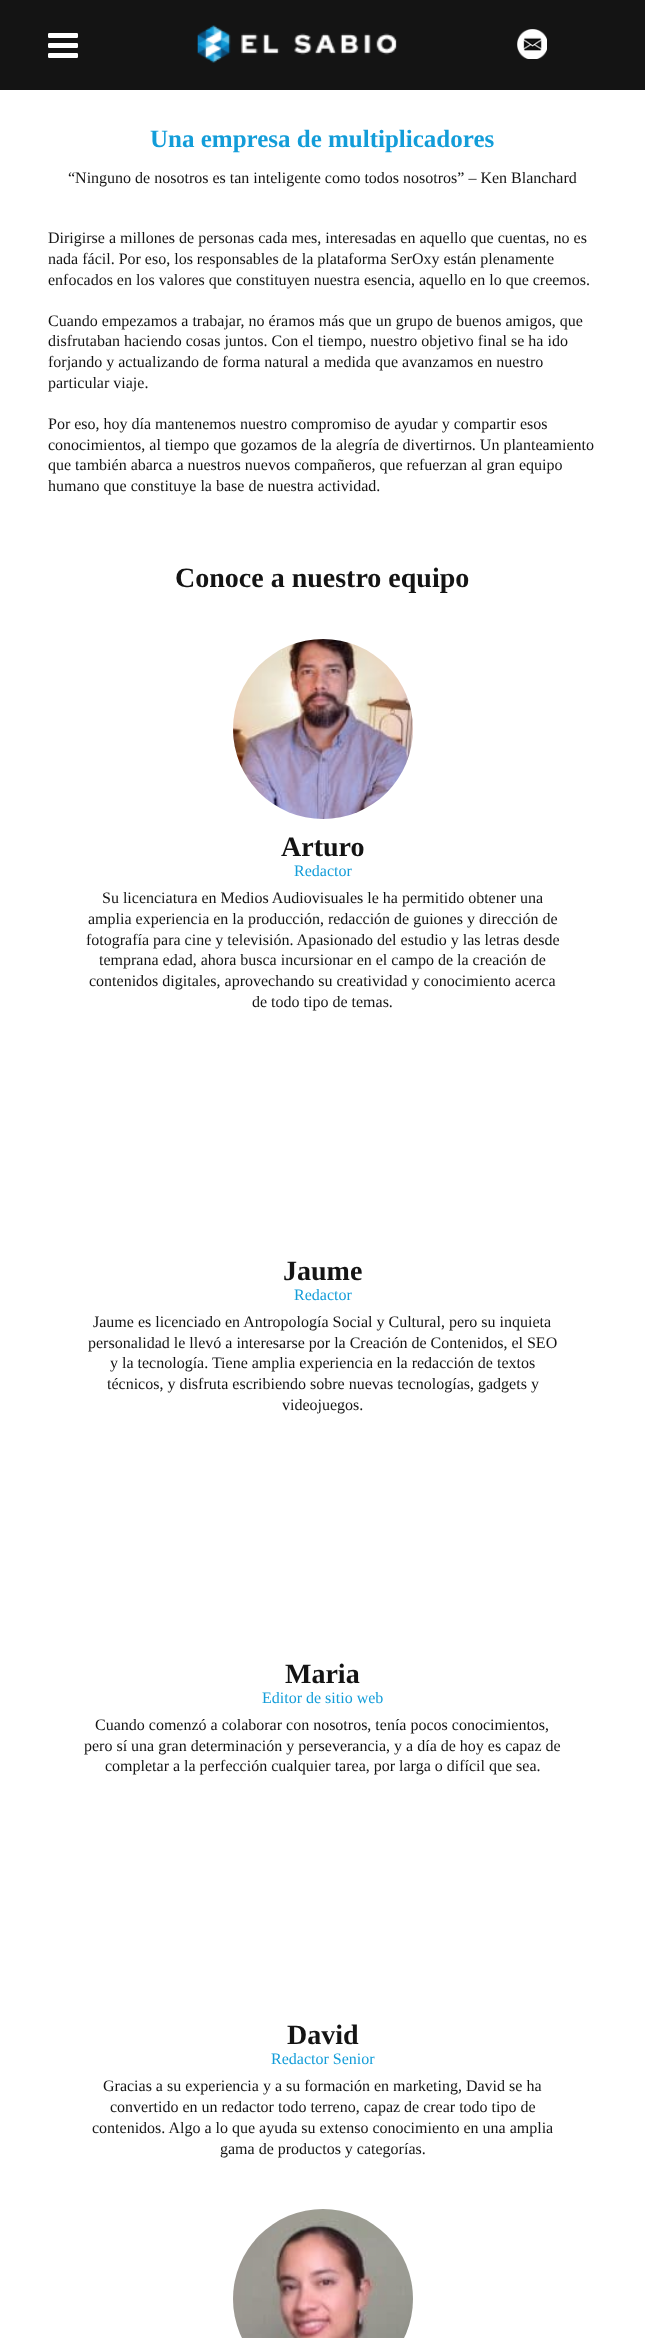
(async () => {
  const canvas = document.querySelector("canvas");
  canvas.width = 645;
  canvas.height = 2338;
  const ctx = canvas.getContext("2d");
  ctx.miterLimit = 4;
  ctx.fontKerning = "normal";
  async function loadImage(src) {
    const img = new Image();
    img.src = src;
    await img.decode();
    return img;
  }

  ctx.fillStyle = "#ffffff";
  ctx.fillRect(0, 0, 645, 2338);
  ctx.fillStyle = "#141414";
  ctx.fillRect(0, 0, 645, 90);
  ctx.drawImage(await loadImage("img/1.png"), 48, 33, 30, 25);
  ctx.drawImage(await loadImage("img/2.png"), 197, 25, 200, 38);
  ctx.drawImage(await loadImage("img/3.png"), 517, 29, 30, 30);
  ctx.drawImage(await loadImage("img/4.png"), 233, 639, 180, 180);
  ctx.drawImage(await loadImage("img/5.png"), 233, 2209, 180, 129);
  ctx.font = "bold 25px Liberation Serif";
  ctx.fillStyle = "#139dd9";
  ctx.fillText("Una empresa de multiplicadores", 150, 147);
  ctx.font = "16px Liberation Serif";
  ctx.fillStyle = "#141414";
  for (const [text, x, y] of [
    ["“Ninguno de nosotros es tan inteligente como todos nosotros” – Ken Blanchard", 68, 183],
    ["Dirigirse a millones de personas cada mes, interesadas en aquello que cuentas, no es", 48, 243],
    ["nada fácil. Por eso, los responsables de la plataforma SerOxy están plenamente", 48, 264],
    ["enfocados en los valores que constituyen nuestra esencia, aquello en lo que creemos.", 48, 285],
    ["Cuando empezamos a trabajar, no éramos más que un grupo de buenos amigos, que", 48, 326],
    ["disfrutaban haciendo cosas juntos. Con el tiempo, nuestro objetivo final se ha ido", 48, 346],
    ["forjando y actualizando de forma natural a medida que avanzamos en nuestro", 48, 367],
    ["particular viaje.", 48, 388],
    ["Por eso, hoy día mantenemos nuestro compromiso de ayudar y compartir esos", 48, 429],
    ["conocimientos, al tiempo que gozamos de la alegría de divertirnos. Un planteamiento", 48, 450],
    ["que también abarca a nuestros nuevos compañeros, que refuerzan al gran equipo", 48, 470],
    ["humano que constituye la base de nuestra actividad.", 48, 491],
  ]) {
    ctx.fillText(text, x, y);
  }
  ctx.font = "bold 28px Liberation Serif";
  ctx.fillText("Conoce a nuestro equipo", 175, 587);
  ctx.fillText("Arturo", 281, 856);
  ctx.font = "16px Liberation Serif";
  ctx.fillStyle = "#139dd9";
  ctx.fillText("Redactor", 294, 876);
  ctx.fillStyle = "#141414";
  for (const [text, x, y] of [
    ["Su licenciatura en Medios Audiovisuales le ha permitido obtener una", 102, 903],
    ["amplia experiencia en la producción, redacción de guiones y dirección de", 88, 924],
    ["fotografía para cine y televisión. Apasionado del estudio y las letras desde", 86, 945],
    ["temprana edad, ahora busca incursionar en el campo de la creación de", 99, 965],
    ["contenidos digitales, aprovechando su creatividad y conocimiento acerca", 89, 986],
    ["de todo tipo de temas.", 252, 1007],
  ]) {
    ctx.fillText(text, x, y);
  }
  ctx.font = "bold 28px Liberation Serif";
  ctx.fillText("Jaume", 283, 1280);
  ctx.font = "16px Liberation Serif";
  ctx.fillStyle = "#139dd9";
  ctx.fillText("Redactor", 294, 1300);
  ctx.fillStyle = "#141414";
  for (const [text, x, y] of [
    ["Jaume es licenciado en Antropología Social y Cultural, pero su inquieta", 93, 1327],
    ["personalidad le llevó a interesarse por la Creación de Contenidos, el SEO", 88, 1348],
    ["y la tecnología. Tiene amplia experiencia en la redacción de textos", 110, 1368],
    ["técnicos, y disfruta escribiendo sobre nuevas tecnologías, gadgets y", 107, 1389],
    ["videojuegos.", 282, 1410],
  ]) {
    ctx.fillText(text, x, y);
  }
  ctx.font = "bold 28px Liberation Serif";
  ctx.fillText("Maria", 285, 1683);
  ctx.font = "16px Liberation Serif";
  ctx.fillStyle = "#139dd9";
  ctx.fillText("Editor de sitio web", 262, 1703);
  ctx.fillStyle = "#141414";
  for (const [text, x, y] of [
    ["Cuando comenzó a colaborar con nosotros, tenía pocos conocimientos,", 95, 1730],
    ["pero sí una gran determinación y perseverancia, y a día de hoy es capaz de", 84, 1751],
    ["completar a la perfección cualquier tarea, por larga o difícil que sea.", 105, 1771],
  ]) {
    ctx.fillText(text, x, y);
  }
  ctx.font = "bold 28px Liberation Serif";
  ctx.fillText("David", 287, 2044);
  ctx.font = "16px Liberation Serif";
  ctx.fillStyle = "#139dd9";
  ctx.fillText("Redactor Senior", 271, 2064);
  ctx.fillStyle = "#141414";
  for (const [text, x, y] of [
    ["Gracias a su experiencia y a su formación en marketing, David se ha", 103, 2091],
    ["convertido en un redactor todo terreno, capaz de crear todo tipo de", 110, 2112],
    ["contenidos. Algo a lo que ayuda su extenso conocimiento en una amplia", 92, 2133],
    ["gama de productos y categorías.", 220, 2154],
  ]) {
    ctx.fillText(text, x, y);
  }
})();
